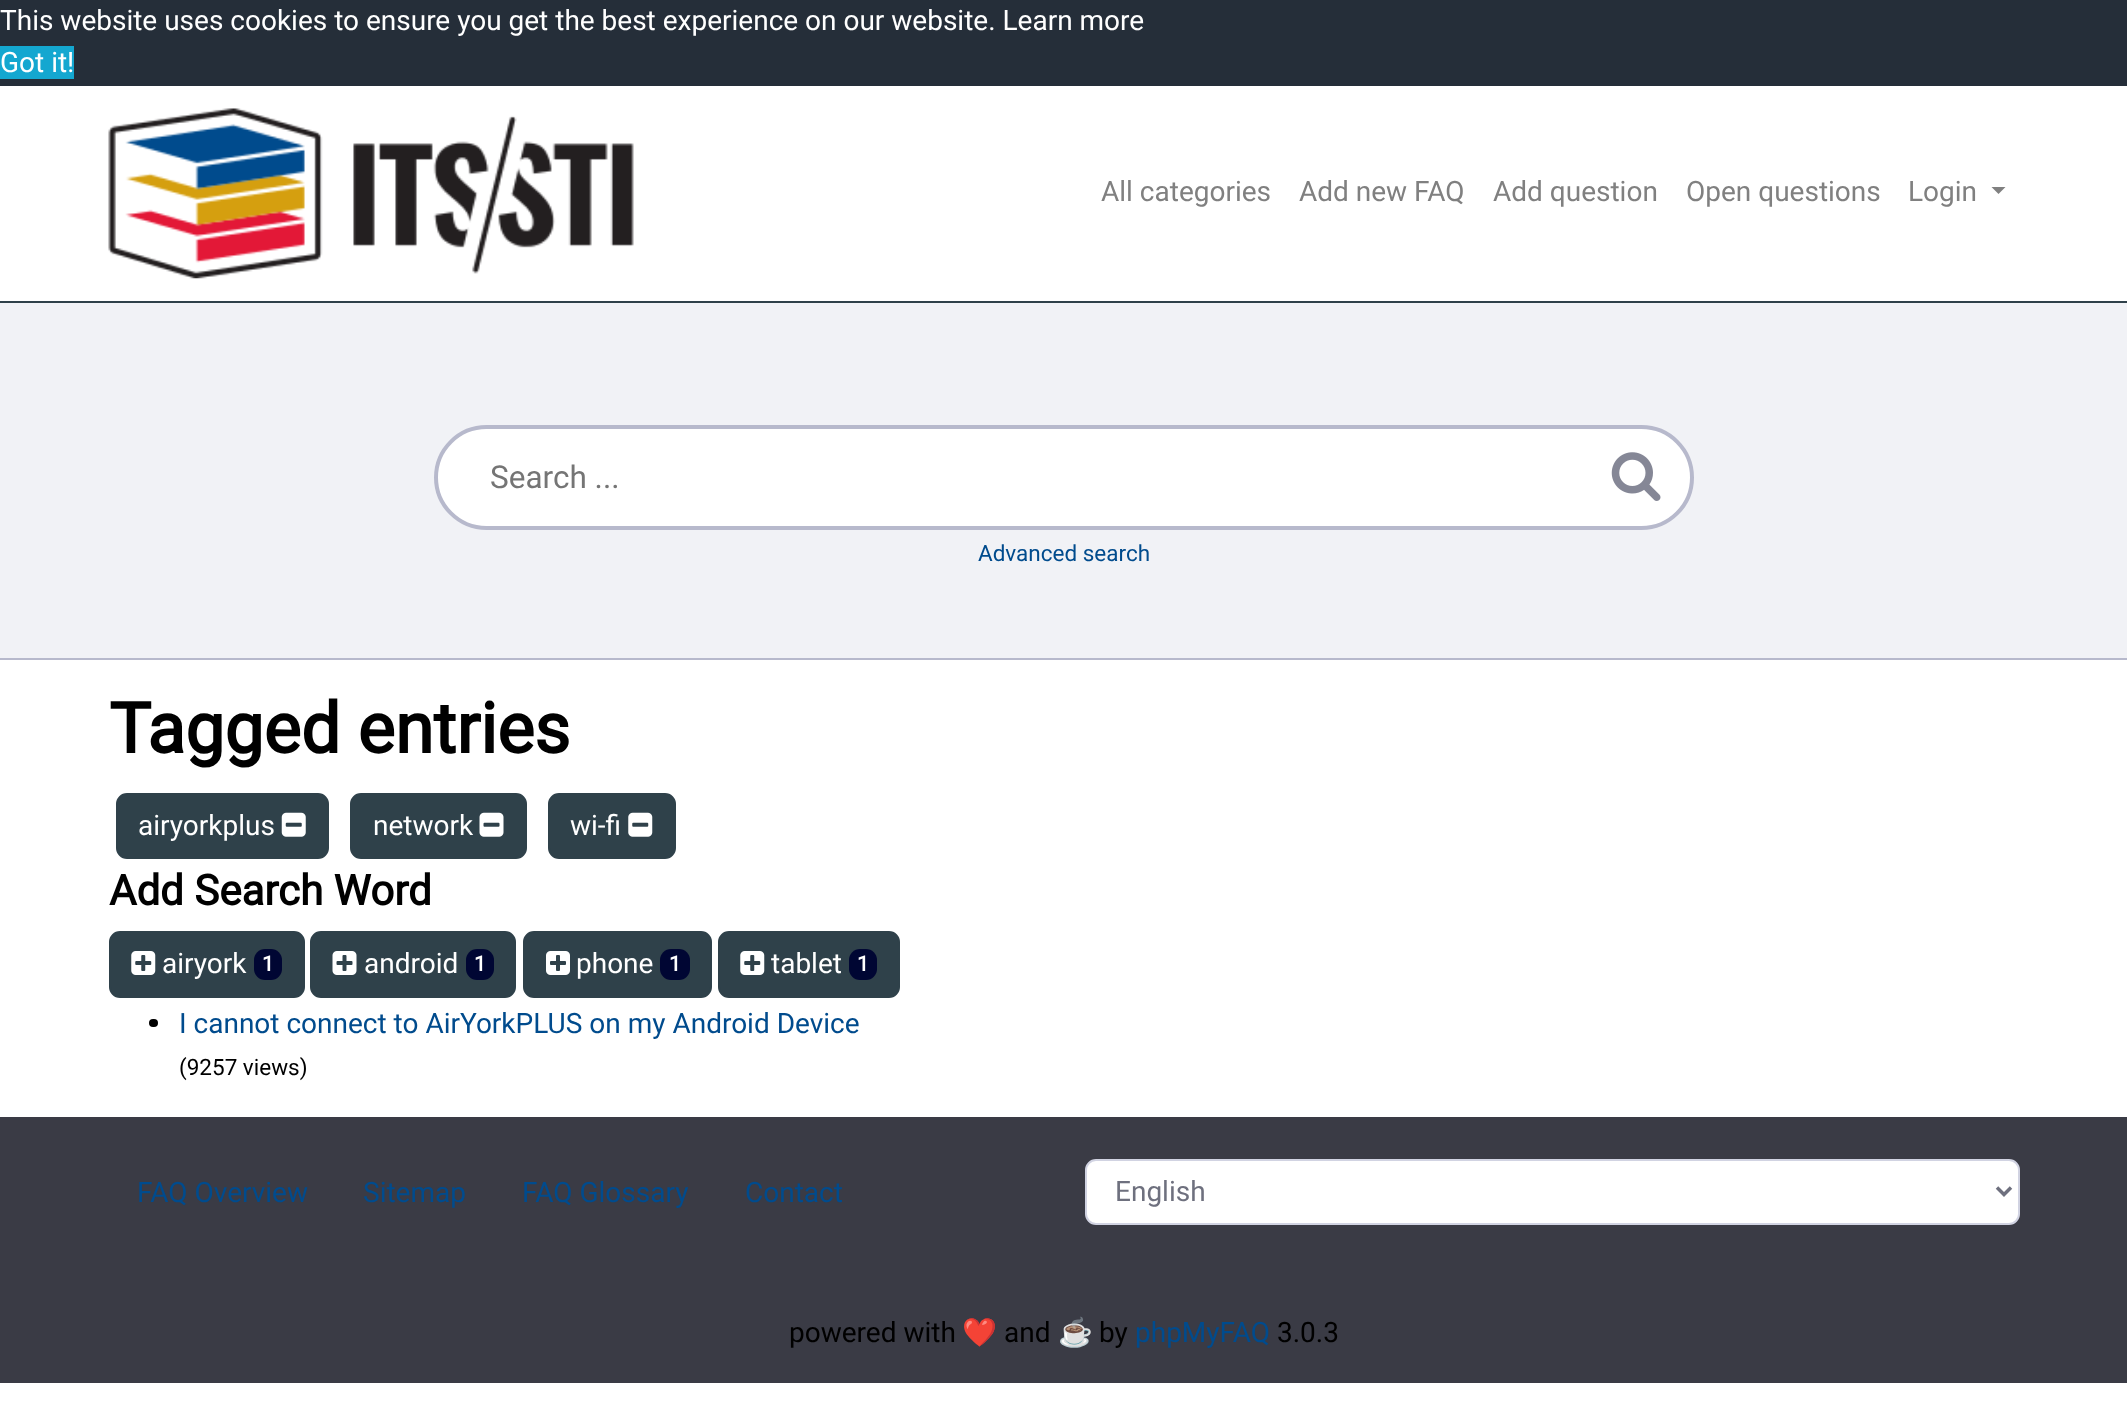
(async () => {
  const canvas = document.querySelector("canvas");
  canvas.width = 2127;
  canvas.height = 1405;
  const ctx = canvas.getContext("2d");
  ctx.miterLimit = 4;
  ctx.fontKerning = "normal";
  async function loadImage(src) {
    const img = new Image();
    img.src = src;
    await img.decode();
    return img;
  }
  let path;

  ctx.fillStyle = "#ffffff";
  ctx.fillRect(0, 0, 2127, 1405);
  ctx.fillStyle = "#252e39";
  ctx.fillRect(0, 0, 2127, 86);
  ctx.fillStyle = "#14a7d0";
  ctx.fillRect(0, 46, 74, 33);
  ctx.drawImage(await loadImage("img/1.png"), 108, 108, 526, 171);
  ctx.fillStyle = "#808080";
  path = new Path2D("M1991.5 187H2005.5L1998.5 194Z");
  ctx.fill(path);
  for (const [x, y, w, h, color] of [
    [0, 303, 2127, 355, "#f1f2f6"],
    [0, 301, 2127, 2, "#2f414a"],
    [0, 658, 2127, 2, "#b7b9cc"],
  ]) {
    ctx.fillStyle = color;
    ctx.fillRect(x, y, w, h);
  }
  ctx.fillStyle = "#ffffff";
  ctx.beginPath();
  ctx.roundRect(436, 427, 1256, 101, 50.5);
  ctx.fill();
  ctx.strokeStyle = "#b7b9cc";
  ctx.lineWidth = 4;
  ctx.stroke();
  ctx.drawImage(await loadImage("img/2.png"), 1611, 452, 50, 49);
  ctx.fillStyle = "#2f414a";
  ctx.beginPath();
  ctx.roundRect(117, 794, 211, 64, 10);
  ctx.fill();
  ctx.strokeStyle = "#2f414a";
  ctx.lineWidth = 2;
  ctx.stroke();
  ctx.drawImage(await loadImage("img/3.png"), 281, 812, 25, 25);
  ctx.beginPath();
  ctx.roundRect(351, 794, 175, 64, 10);
  ctx.fill();
  ctx.stroke();
  ctx.drawImage(await loadImage("img/4.png"), 479, 812, 25, 25);
  ctx.beginPath();
  ctx.roundRect(549, 794, 126, 64, 10);
  ctx.fill();
  ctx.stroke();
  ctx.drawImage(await loadImage("img/5.png"), 628, 812, 25, 25);
  ctx.beginPath();
  ctx.roundRect(110, 932, 194, 65, 10);
  ctx.fill();
  ctx.stroke();
  ctx.drawImage(await loadImage("img/6.png"), 131, 951, 25, 24);
  ctx.fillStyle = "#000633";
  ctx.beginPath();
  ctx.roundRect(254, 949, 28, 31, 11);
  ctx.fill();
  ctx.fillStyle = "#2f414a";
  ctx.beginPath();
  ctx.roundRect(311, 932, 204, 65, 10);
  ctx.fill();
  ctx.stroke();
  ctx.drawImage(await loadImage("img/7.png"), 332, 951, 25, 24);
  ctx.fillStyle = "#000633";
  ctx.beginPath();
  ctx.roundRect(466, 949, 28, 31, 11);
  ctx.fill();
  ctx.fillStyle = "#2f414a";
  ctx.beginPath();
  ctx.roundRect(524, 932, 187, 65, 10);
  ctx.fill();
  ctx.stroke();
  ctx.drawImage(await loadImage("img/8.png"), 546, 951, 24, 24);
  ctx.fillStyle = "#000633";
  ctx.beginPath();
  ctx.roundRect(660, 949, 30, 31, 11);
  ctx.fill();
  ctx.fillStyle = "#2f414a";
  ctx.beginPath();
  ctx.roundRect(719, 932, 180, 65, 10);
  ctx.fill();
  ctx.stroke();
  ctx.drawImage(await loadImage("img/6.png"), 740, 951, 25, 24);
  ctx.fillStyle = "#000633";
  ctx.beginPath();
  ctx.roundRect(849, 949, 28, 31, 11);
  ctx.fill();
  ctx.fillStyle = "#000000";
  ctx.beginPath();
  ctx.roundRect(149, 1019, 9, 8, 4);
  ctx.fill();
  ctx.fillStyle = "#3a3b45";
  ctx.fillRect(0, 1117, 2127, 266);
  ctx.fillStyle = "#ffffff";
  ctx.beginPath();
  ctx.roundRect(1086, 1160, 933, 64, 10);
  ctx.fill();
  ctx.strokeStyle = "#d1d3e2";
  ctx.stroke();
  path = new Path2D("M1997 1187.5L2004 1194.5L2011 1187.5");
  ctx.strokeStyle = "#6e707e";
  ctx.lineWidth = 3.5;
  ctx.stroke(path);
  ctx.font = "28px Roboto";
  ctx.fillText("This website uses cookies to ensure you get the best experience on our website. Learn more", 0, 30);
  ctx.fillText("Got it!", 0, 72);
  ctx.fillStyle = "#808080";
  for (const [text, x, y] of [
    ["All categories", 1101, 201],
    ["Add new FAQ", 1299, 201],
    ["Add question", 1493, 201],
    ["Open questions", 1686, 201],
    ["Login", 1908, 201],
  ]) {
    ctx.fillText(text, x, y);
  }
  ctx.font = "31.5px Roboto";
  ctx.fillStyle = "#757575";
  ctx.fillText("Search ...", 490, 488);
  ctx.font = "22.5px Roboto";
  ctx.fillStyle = "#004b8d";
  ctx.fillText("Advanced search", 978, 561);
  ctx.font = "bold 70px Roboto";
  ctx.fillStyle = "#000000";
  ctx.fillText("Tagged entries", 109, 753);
  ctx.font = "28px Roboto";
  ctx.fillStyle = "#ffffff";
  for (const [text, x, y] of [
    ["airyorkplus", 138, 835],
    ["network", 373, 835],
    ["wi-fi", 570, 835],
  ]) {
    ctx.fillText(text, x, y);
  }
  ctx.font = "bold 42px Roboto";
  ctx.fillStyle = "#000000";
  ctx.fillText("Add Search Word", 109, 905);
  ctx.font = "28px Roboto";
  ctx.fillStyle = "#ffffff";
  ctx.fillText("airyork", 162, 973);
  ctx.font = "bold 21px Roboto";
  ctx.fillText("1", 262, 971);
  ctx.font = "28px Roboto";
  ctx.fillText("android", 364, 973);
  ctx.font = "bold 21px Roboto";
  ctx.fillText("1", 474, 971);
  ctx.font = "28px Roboto";
  ctx.fillText("phone", 576, 973);
  ctx.font = "bold 21px Roboto";
  ctx.fillText("1", 669, 971);
  ctx.font = "28px Roboto";
  ctx.fillText("tablet", 771, 973);
  ctx.font = "bold 21px Roboto";
  ctx.fillText("1", 857, 971);
  ctx.font = "28px Roboto";
  ctx.fillStyle = "#004b8d";
  ctx.fillText("I cannot connect to AirYorkPLUS on my Android Device", 179, 1033);
  ctx.font = "22.5px Roboto";
  ctx.fillStyle = "#000000";
  ctx.fillText("(9257 views)", 179, 1075);
  ctx.font = "28px Roboto";
  ctx.fillStyle = "#004b8d";
  for (const [text, x, y] of [
    ["FAQ Overview", 137, 1202],
    ["Sitemap", 363, 1202],
    ["FAQ Glossary", 522, 1202],
    ["Contact", 745, 1202],
  ]) {
    ctx.fillText(text, x, y);
  }
  ctx.fillStyle = "#6e707e";
  ctx.fillText("English", 1115, 1201);
  ctx.fillStyle = "#000000";
  ctx.fillText("powered with", 789, 1342);
  ctx.font = "28px Noto Color Emoji";
  ctx.fillText("❤️", 962, 1342);
  ctx.font = "28px Roboto";
  ctx.fillText("and", 1004, 1342);
  ctx.font = "28px Noto Color Emoji";
  ctx.fillText("☕️", 1058, 1342);
  ctx.font = "28px Roboto";
  ctx.fillText("by", 1099, 1342);
  ctx.fillStyle = "#004b8d";
  ctx.fillText("phpMyFAQ", 1135, 1342);
  ctx.fillStyle = "#000000";
  ctx.fillText("3.0.3", 1277, 1342);
})();
